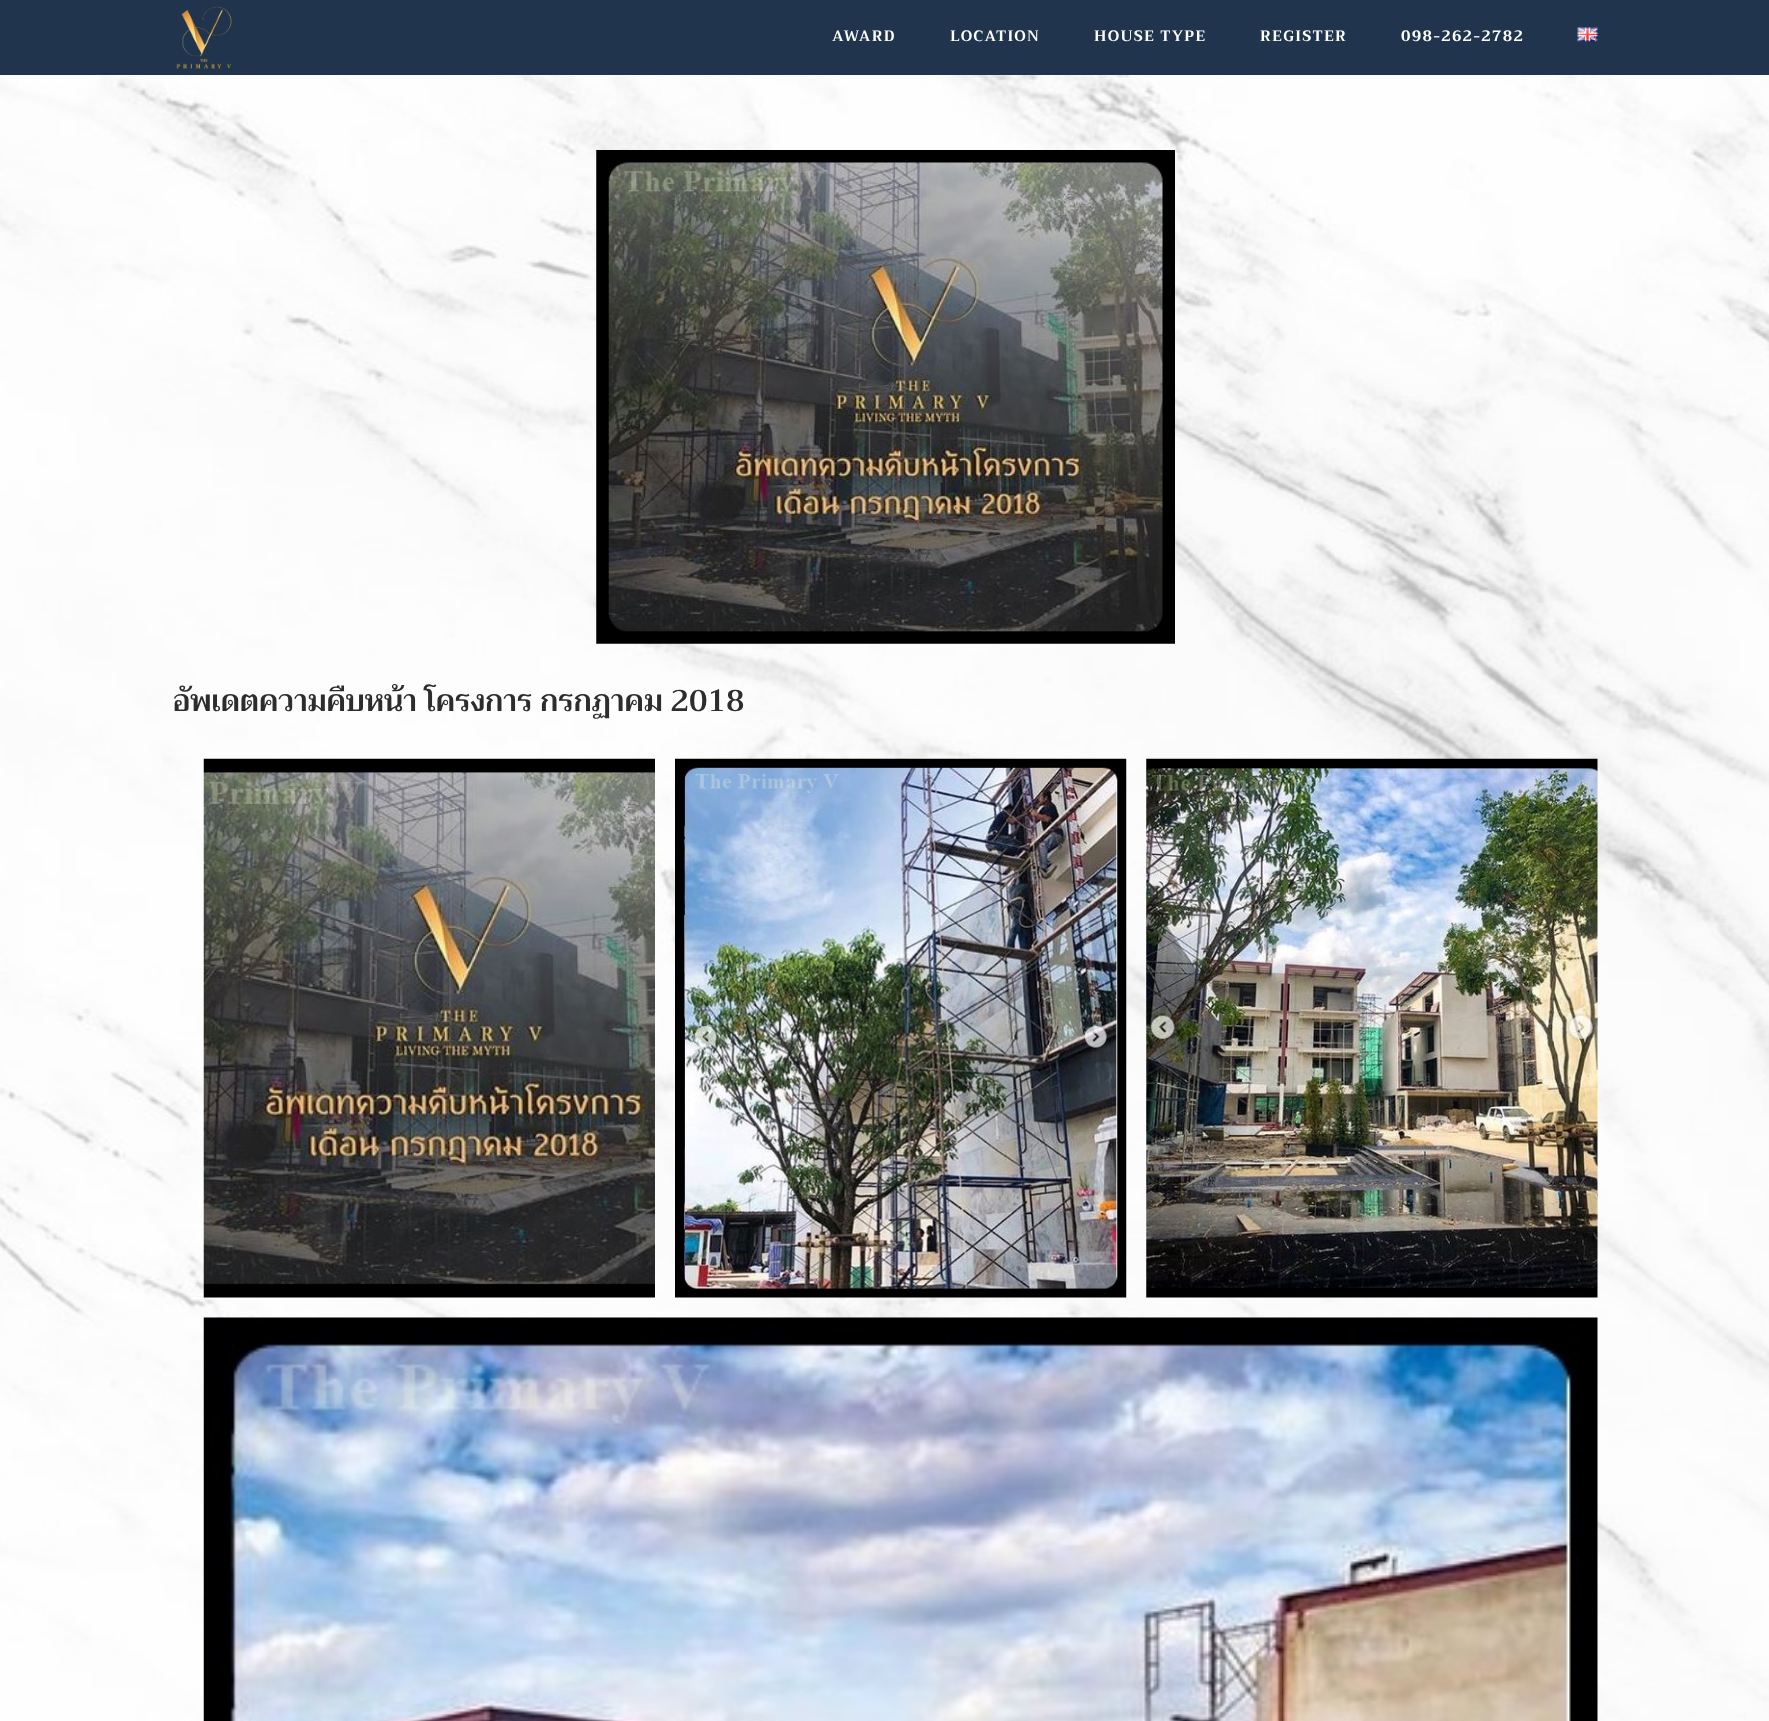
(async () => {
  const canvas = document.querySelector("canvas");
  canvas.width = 1769;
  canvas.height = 1721;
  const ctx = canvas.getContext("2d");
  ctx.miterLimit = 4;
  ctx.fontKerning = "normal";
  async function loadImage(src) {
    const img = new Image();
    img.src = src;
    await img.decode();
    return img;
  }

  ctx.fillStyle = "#ffffff";
  ctx.fillRect(0, 0, 1769, 1721);
  ctx.drawImage(await loadImage("img/1.png"), 0, 75, 1769, 1646);
  ctx.fillStyle = "#20344d";
  ctx.fillRect(0, 0, 1769, 75);
  ctx.drawImage(await loadImage("img/2.png"), 176, 6, 56, 63);
  ctx.drawImage(await loadImage("img/3.png"), 1577, 27, 21, 15);
  ctx.drawImage(await loadImage("img/4.png"), 596, 150, 579, 494);
  ctx.drawImage(await loadImage("img/5.png"), 203, 758, 452, 540);
  ctx.drawImage(await loadImage("img/6.png"), 675, 758, 452, 540);
  ctx.drawImage(await loadImage("img/7.png"), 1146, 758, 452, 540);
  ctx.drawImage(await loadImage("img/8.png"), 203, 1317, 1395, 404);
  ctx.letterSpacing = "1.25px";
  ctx.font = "bold 15px Trirong";
  ctx.fillStyle = "#ffffff";
  for (const [text, x, y] of [
    ["AWARD", 832, 41],
    ["LOCATION", 950, 41],
    ["HOUSE TYPE", 1094, 41],
    ["REGISTER", 1260, 41],
    ["098-262-2782", 1401, 41],
  ]) {
    ctx.fillText(text, x, y);
  }
  ctx.letterSpacing = "0px";
  ctx.font = "600 30px Trirong";
  ctx.fillStyle = "#2d2d2d";
  ctx.fillText("อัพเดตความคืบหน้า โครงการ กรกฏาคม 2018", 173, 711);
})();
